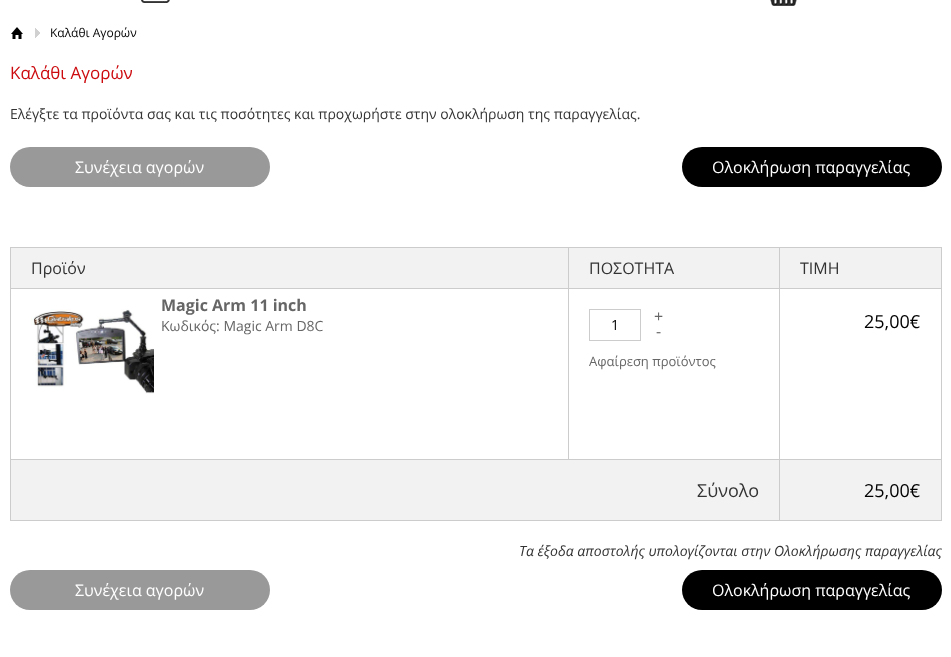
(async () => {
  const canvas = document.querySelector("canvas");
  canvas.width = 951;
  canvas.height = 657;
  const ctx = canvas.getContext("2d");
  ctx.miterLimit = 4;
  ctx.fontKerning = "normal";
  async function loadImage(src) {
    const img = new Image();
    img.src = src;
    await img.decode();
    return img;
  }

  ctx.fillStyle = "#ffffff";
  ctx.fillRect(0, 0, 951, 657);
  ctx.drawImage(await loadImage("img/1.png"), 141, 0, 29, 3);
  ctx.drawImage(await loadImage("img/2.png"), 770, 0, 27, 6);
  ctx.drawImage(await loadImage("img/3.png"), 11, 27, 12, 12);
  ctx.drawImage(await loadImage("img/4.png"), 35, 28, 5, 10);
  ctx.fillStyle = "#999999";
  ctx.beginPath();
  ctx.roundRect(10, 147, 260, 40, 20);
  ctx.fill();
  ctx.fillStyle = "#000000";
  ctx.beginPath();
  ctx.roundRect(682, 147, 260, 40, 20);
  ctx.fill();
  for (const [x, y, w, h, color] of [
    [10, 247, 932, 1, "#cccccc"],
    [10, 247, 1, 274, "#cccccc"],
    [11, 248, 557, 40, "#f2f2f2"],
    [568, 248, 1, 212, "#cccccc"],
    [11, 288, 558, 1, "#cccccc"],
    [569, 248, 210, 40, "#f2f2f2"],
    [779, 248, 1, 273, "#cccccc"],
    [569, 288, 211, 1, "#cccccc"],
    [780, 248, 161, 40, "#f2f2f2"],
    [941, 248, 1, 273, "#cccccc"],
    [780, 288, 162, 1, "#cccccc"],
    [11, 459, 931, 1, "#cccccc"],
  ]) {
    ctx.fillStyle = color;
    ctx.fillRect(x, y, w, h);
  }
  ctx.drawImage(await loadImage("img/5.png"), 31, 309, 123, 85);
  ctx.strokeStyle = "#cccccc";
  ctx.strokeRect(589.5, 309.5, 51, 31);
  for (const [x, y, w, h, color] of [
    [11, 460, 768, 60, "#f2f2f2"],
    [11, 520, 931, 1, "#cccccc"],
    [780, 460, 161, 60, "#f2f2f2"],
  ]) {
    ctx.fillStyle = color;
    ctx.fillRect(x, y, w, h);
  }
  ctx.fillStyle = "#999999";
  ctx.beginPath();
  ctx.roundRect(10, 570, 260, 40, 20);
  ctx.fill();
  ctx.fillStyle = "#000000";
  ctx.beginPath();
  ctx.roundRect(682, 570, 260, 40, 20);
  ctx.fill();
  ctx.font = "12px Open Sans";
  ctx.fillText("Καλάθι Αγορών", 50, 37);
  ctx.font = "17px Open Sans";
  ctx.fillStyle = "#cc0b0f";
  ctx.fillText("Καλάθι Αγορών", 10, 79);
  ctx.font = "14px Open Sans";
  ctx.fillStyle = "#333333";
  ctx.fillText("Ελέγξτε τα προϊόντα σας και τις ποσότητες και προχωρήστε στην ολοκλήρωση της παραγγελίας.", 10, 119);
  ctx.font = "16px Open Sans";
  ctx.fillStyle = "#ffffff";
  ctx.fillText("Συνέχεια αγορών", 75, 173);
  ctx.fillText("Ολοκλήρωση παραγγελίας", 712, 173);
  ctx.fillStyle = "#333333";
  for (const [text, x, y] of [
    ["Προϊόν", 31, 274],
    ["ΠΟΣΟΤΗΤΑ", 589, 274],
    ["TIMH", 800, 274],
  ]) {
    ctx.fillText(text, x, y);
  }
  ctx.font = "bold 16px Open Sans";
  ctx.fillStyle = "#666666";
  ctx.fillText("Magic Arm 11 inch", 161, 311);
  ctx.font = "14px Open Sans";
  ctx.fillText("Κωδικός: Magic Arm D8C", 161, 331);
  ctx.fillStyle = "#000000";
  ctx.fillText("1", 611, 330);
  ctx.font = "16px Open Sans";
  ctx.fillStyle = "#666666";
  ctx.fillText("+", 654, 322);
  ctx.fillText("-", 656, 337);
  ctx.font = "13px Open Sans";
  ctx.fillText("Αφαίρεση προϊόντος", 589, 366);
  ctx.font = "18px Open Sans";
  ctx.fillStyle = "#000000";
  ctx.fillText("25,00€", 864, 328);
  ctx.fillStyle = "#333333";
  ctx.fillText("Σύνολο", 697, 497);
  ctx.fillStyle = "#000000";
  ctx.fillText("25,00€", 864, 497);
  ctx.font = "italic 14px Open Sans";
  ctx.fillStyle = "#333333";
  ctx.fillText("Τα έξοδα αποστολής υπολογίζονται στην Ολοκλήρωσης παραγγελίας", 519, 556);
  ctx.font = "16px Open Sans";
  ctx.fillStyle = "#ffffff";
  ctx.fillText("Συνέχεια αγορών", 75, 596);
  ctx.fillText("Ολοκλήρωση παραγγελίας", 712, 596);
})();
